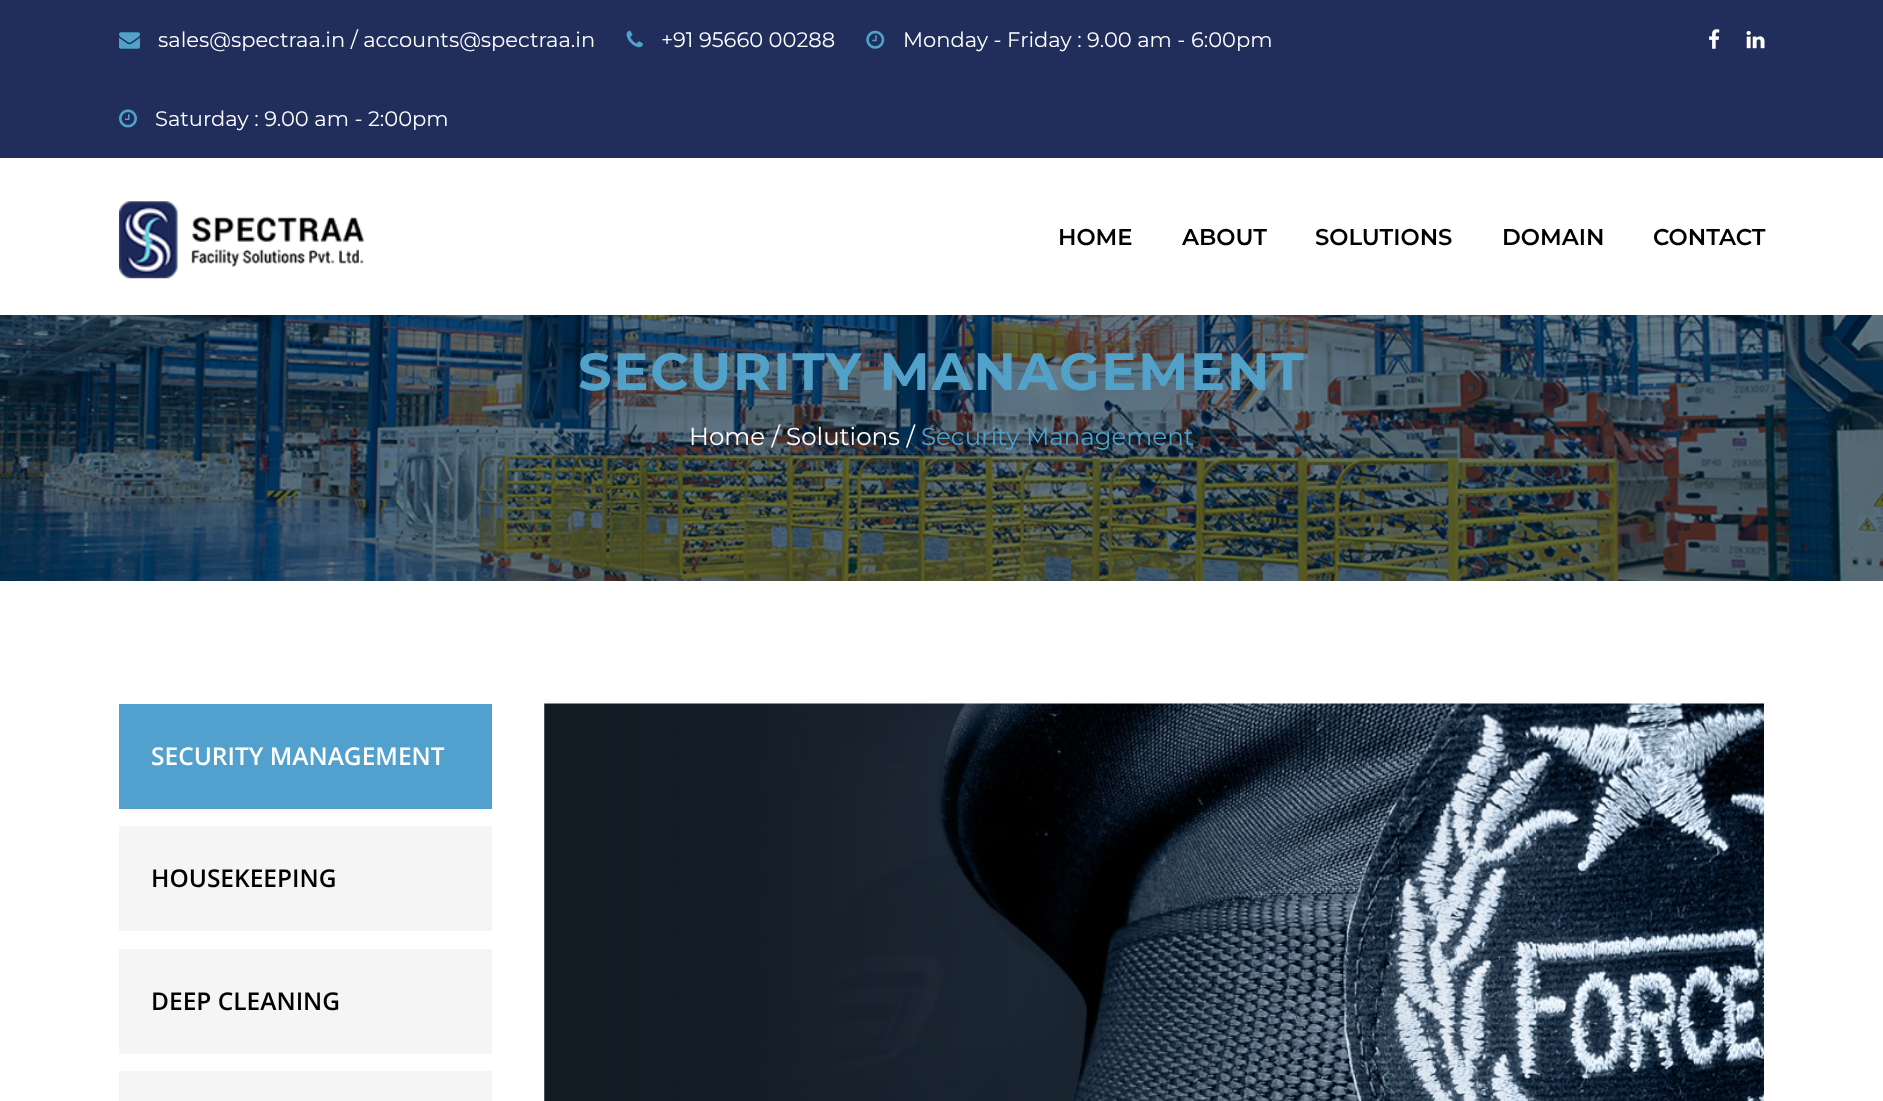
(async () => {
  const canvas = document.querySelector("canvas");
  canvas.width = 1883;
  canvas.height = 1101;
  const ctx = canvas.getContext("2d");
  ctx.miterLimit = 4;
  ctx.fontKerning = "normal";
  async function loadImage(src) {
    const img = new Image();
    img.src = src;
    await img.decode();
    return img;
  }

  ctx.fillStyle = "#ffffff";
  ctx.fillRect(0, 0, 1883, 1101);
  ctx.fillStyle = "#212e5b";
  ctx.fillRect(0, 0, 1883, 158);
  ctx.drawImage(await loadImage("img/1.png"), 119, 32, 21, 17);
  ctx.drawImage(await loadImage("img/2.png"), 626, 30, 17, 18);
  ctx.drawImage(await loadImage("img/3.png"), 866, 30, 19, 19);
  ctx.drawImage(await loadImage("img/4.png"), 119, 109, 18, 19);
  ctx.drawImage(await loadImage("img/5.png"), 1709, 29, 11, 20);
  ctx.drawImage(await loadImage("img/6.png"), 1746, 31, 19, 18);
  ctx.drawImage(await loadImage("img/7.png"), 119, 201, 245, 78);
  ctx.drawImage(await loadImage("img/8.png"), 0, 315, 1883, 266);
  for (const [x, y, w, h, color] of [
    [119, 704, 373, 105, "#51a0cd"],
    [119, 826, 373, 105, "#f5f5f5"],
    [119, 949, 373, 105, "#f5f5f5"],
    [119, 1071, 373, 30, "#f5f5f5"],
  ]) {
    ctx.fillStyle = color;
    ctx.fillRect(x, y, w, h);
  }
  ctx.drawImage(await loadImage("img/9.png"), 544, 703, 1220, 398);
  ctx.font = "21px Montserrat";
  ctx.fillStyle = "#ffffff";
  for (const [text, x, y] of [
    ["sales@spectraa.in / accounts@spectraa.in", 158, 47],
    ["+91 95660 00288", 661, 47],
    ["Monday - Friday : 9.00 am - 6:00pm", 903, 47],
    ["Saturday : 9.00 am - 2:00pm", 155, 126],
  ]) {
    ctx.fillText(text, x, y);
  }
  ctx.font = "600 22.75px Montserrat";
  ctx.fillStyle = "#000000";
  for (const [text, x, y] of [
    ["HOME", 1058, 245],
    ["ABOUT", 1182, 245],
    ["SOLUTIONS", 1315, 245],
    ["DOMAIN", 1502, 245],
    ["CONTACT", 1653, 245],
  ]) {
    ctx.fillText(text, x, y);
  }
  ctx.letterSpacing = "1.75px";
  ctx.font = "bold 52.5px Montserrat";
  ctx.fillStyle = "#51a1c9";
  ctx.fillText("SECURITY MANAGEMENT", 578, 390);
  ctx.letterSpacing = "0px";
  ctx.font = "24.5px Montserrat";
  ctx.fillStyle = "#ffffff";
  ctx.fillText("Home / Solutions /", 689, 445);
  ctx.fillStyle = "#51a1c9";
  ctx.fillText("Security Management", 921, 445);
  ctx.font = "600 24.5px Open Sans";
  ctx.fillStyle = "#ffffff";
  ctx.fillText("SECURITY MANAGEMENT", 151, 765);
  ctx.fillStyle = "#000000";
  ctx.fillText("HOUSEKEEPING", 151, 887);
  ctx.fillText("DEEP CLEANING", 151, 1010);
})();
